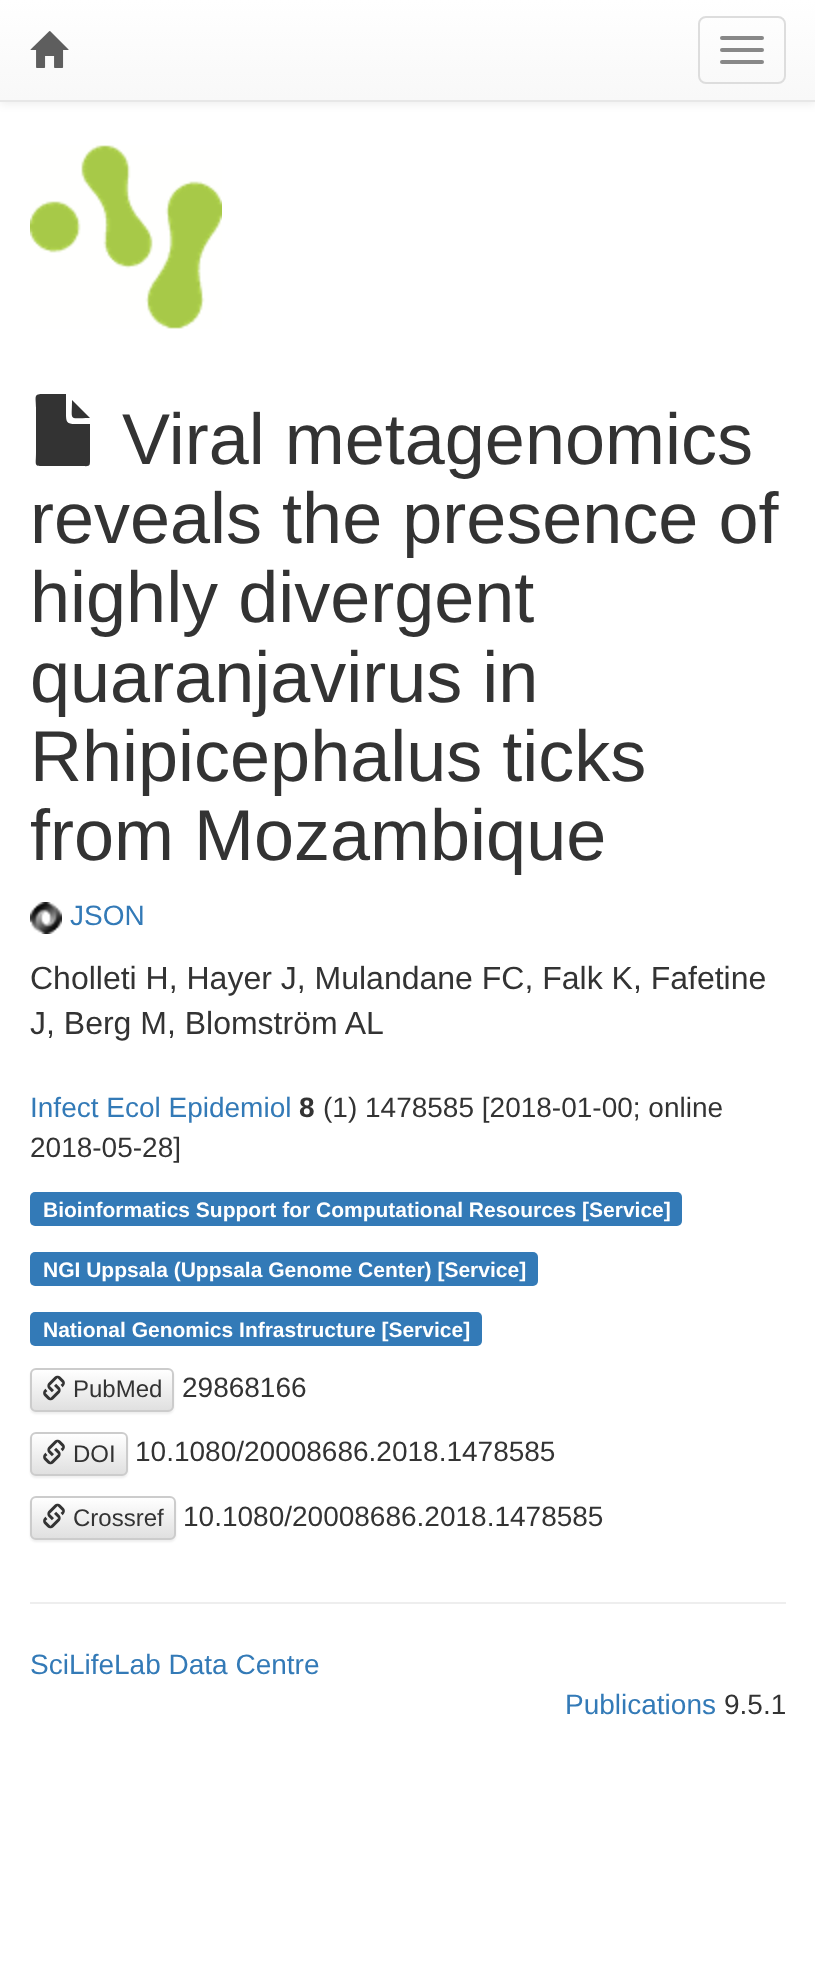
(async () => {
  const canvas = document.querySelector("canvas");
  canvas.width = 815;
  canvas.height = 1988;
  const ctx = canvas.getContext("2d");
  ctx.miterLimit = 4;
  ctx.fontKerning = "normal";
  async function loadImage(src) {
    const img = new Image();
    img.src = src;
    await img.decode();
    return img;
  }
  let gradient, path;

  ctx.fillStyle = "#ffffff";
  ctx.fillRect(0, 0, 815, 1988);
  ctx.fillStyle = "rgba(0, 0, 0, 0.07)";
  ctx.filter = "blur(5px)";
  ctx.beginPath();
  ctx.rect(0, 2, 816, 102);
  ctx.fill();
  ctx.filter = "none";
  gradient = ctx.createLinearGradient(408, 0, 408, 100);
  gradient.addColorStop(0, "#ffffff");
  gradient.addColorStop(1, "#f8f8f8");
  ctx.fillStyle = gradient;
  ctx.fillRect(0, 0, 815, 100);
  ctx.fillStyle = "#e7e7e7";
  ctx.fillRect(0, 100, 815, 2);
  ctx.drawImage(await loadImage("img/1.png"), 30, 31, 39, 37);
  ctx.beginPath();
  ctx.roundRect(699, 17, 86, 66, 7);
  ctx.strokeStyle = "#dddddd";
  ctx.lineWidth = 2;
  ctx.stroke();
  ctx.fillStyle = "#888888";
  ctx.beginPath();
  ctx.roundRect(720, 36, 44, 4, 2);
  ctx.fill();
  ctx.beginPath();
  ctx.roundRect(720, 48, 44, 4, 2);
  ctx.fill();
  ctx.beginPath();
  ctx.roundRect(720, 60, 44, 4, 2);
  ctx.fill();
  ctx.drawImage(await loadImage("img/2.png"), 30, 145, 192, 184);
  ctx.fillStyle = "#333333";
  path = new Path2D("M66 394V414C66 422 67 424 75 424H90V456C90 468 91 466 79 466H47C33 466 36 467 36 452V408C36 396 33 394 44 394ZM90 418C68 418 72 422 72 400Z");
  ctx.fill(path);
  ctx.drawImage(await loadImage("img/3.png"), 30, 902, 32, 32);
  ctx.fillStyle = "#337ab7";
  ctx.beginPath();
  ctx.roundRect(30, 1192, 652, 34, 5);
  ctx.fill();
  ctx.beginPath();
  ctx.roundRect(30, 1252, 508, 34, 5);
  ctx.fill();
  ctx.beginPath();
  ctx.roundRect(30, 1312, 452, 34, 5);
  ctx.fill();
  ctx.fillStyle = "rgba(0, 0, 0, 0.07)";
  ctx.filter = "blur(1px)";
  ctx.beginPath();
  ctx.roundRect(30, 1370, 144, 44, 6);
  ctx.fill();
  ctx.filter = "none";
  ctx.save();
  ctx.beginPath();
  ctx.roundRect(30, 1368, 144, 44, 6);
  ctx.clip();
  gradient = ctx.createLinearGradient(102, 1370, 102, 1410);
  gradient.addColorStop(0, "#ffffff");
  gradient.addColorStop(1, "#e0e0e0");
  ctx.fillStyle = gradient;
  ctx.fillRect(30, 1370, 144, 40);
  ctx.restore();
  ctx.beginPath();
  ctx.roundRect(31, 1369, 142, 42, 5);
  ctx.strokeStyle = "#cccccc";
  ctx.stroke();
  ctx.drawImage(await loadImage("img/4.png"), 43, 1375, 22, 26);
  ctx.filter = "blur(1px)";
  ctx.beginPath();
  ctx.roundRect(30, 1434, 98, 44, 6);
  ctx.fill();
  ctx.filter = "none";
  ctx.save();
  ctx.beginPath();
  ctx.roundRect(30, 1432, 98, 44, 6);
  ctx.clip();
  gradient = ctx.createLinearGradient(79, 1434, 79, 1474);
  gradient.addColorStop(0, "#ffffff");
  gradient.addColorStop(1, "#e0e0e0");
  ctx.fillStyle = gradient;
  ctx.fillRect(30, 1434, 98, 40);
  ctx.restore();
  ctx.beginPath();
  ctx.roundRect(31, 1433, 96, 42, 5);
  ctx.stroke();
  ctx.drawImage(await loadImage("img/4.png"), 43, 1439, 22, 26);
  ctx.filter = "blur(1px)";
  ctx.beginPath();
  ctx.roundRect(30, 1498, 146, 44, 6);
  ctx.fill();
  ctx.filter = "none";
  ctx.save();
  ctx.beginPath();
  ctx.roundRect(30, 1496, 146, 44, 6);
  ctx.clip();
  gradient = ctx.createLinearGradient(103, 1498, 103, 1538);
  gradient.addColorStop(0, "#ffffff");
  gradient.addColorStop(1, "#e0e0e0");
  ctx.fillStyle = gradient;
  ctx.fillRect(30, 1498, 146, 40);
  ctx.restore();
  ctx.beginPath();
  ctx.roundRect(31, 1497, 144, 42, 5);
  ctx.stroke();
  ctx.drawImage(await loadImage("img/4.png"), 43, 1503, 22, 26);
  ctx.fillStyle = "#eeeeee";
  ctx.fillRect(30, 1602, 756, 2);
  ctx.font = "72px Liberation Sans";
  ctx.fillStyle = "#333333";
  for (const [text, x, y] of [
    ["Viral metagenomics", 122, 464],
    ["reveals the presence of", 30, 543],
    ["highly divergent", 30, 622],
    ["quaranjavirus in", 30, 702],
    ["Rhipicephalus ticks", 30, 781],
    ["from Mozambique", 30, 860],
  ]) {
    ctx.fillText(text, x, y);
  }
  ctx.font = "28px Liberation Sans";
  ctx.fillStyle = "#337ab7";
  ctx.fillText("JSON", 70, 925);
  ctx.font = "32px Liberation Sans";
  ctx.fillStyle = "#333333";
  ctx.fillText("Cholleti H, Hayer J, Mulandane FC, Falk K, Fafetine", 30, 989);
  ctx.fillText("J, Berg M, Blomström AL", 30, 1034);
  ctx.font = "28px Liberation Sans";
  ctx.fillStyle = "#337ab7";
  ctx.fillText("Infect Ecol Epidemiol", 30, 1117);
  ctx.font = "bold 28px Liberation Sans";
  ctx.fillStyle = "#333333";
  ctx.fillText("8", 299, 1117);
  ctx.font = "28px Liberation Sans";
  ctx.fillText("(1) 1478585 [2018-01-00; online", 323, 1117);
  ctx.fillText("2018-05-28]", 30, 1157);
  ctx.font = "bold 21px Liberation Sans";
  ctx.fillStyle = "#ffffff";
  for (const [text, x, y] of [
    ["Bioinformatics Support for Computational Resources [Service]", 43, 1217],
    ["NGI Uppsala (Uppsala Genome Center) [Service]", 43, 1277],
    ["National Genomics Infrastructure [Service]", 43, 1337],
  ]) {
    ctx.fillText(text, x, y);
  }
  ctx.font = "24px Liberation Sans";
  ctx.fillStyle = "#333333";
  ctx.fillText("PubMed", 73, 1397);
  ctx.font = "28px Liberation Sans";
  ctx.fillText("29868166", 182, 1397);
  ctx.font = "24px Liberation Sans";
  ctx.fillText("DOI", 73, 1462);
  ctx.font = "28px Liberation Sans";
  ctx.fillText("10.1080/20008686.2018.1478585", 135, 1461);
  ctx.font = "24px Liberation Sans";
  ctx.fillText("Crossref", 73, 1526);
  ctx.font = "28px Liberation Sans";
  ctx.fillText("10.1080/20008686.2018.1478585", 183, 1526);
  ctx.fillStyle = "#337ab7";
  ctx.fillText("SciLifeLab Data Centre", 30, 1674);
  ctx.fillText("Publications", 565, 1714);
  ctx.fillStyle = "#333333";
  ctx.fillText("9.5.1", 724, 1714);
})();
